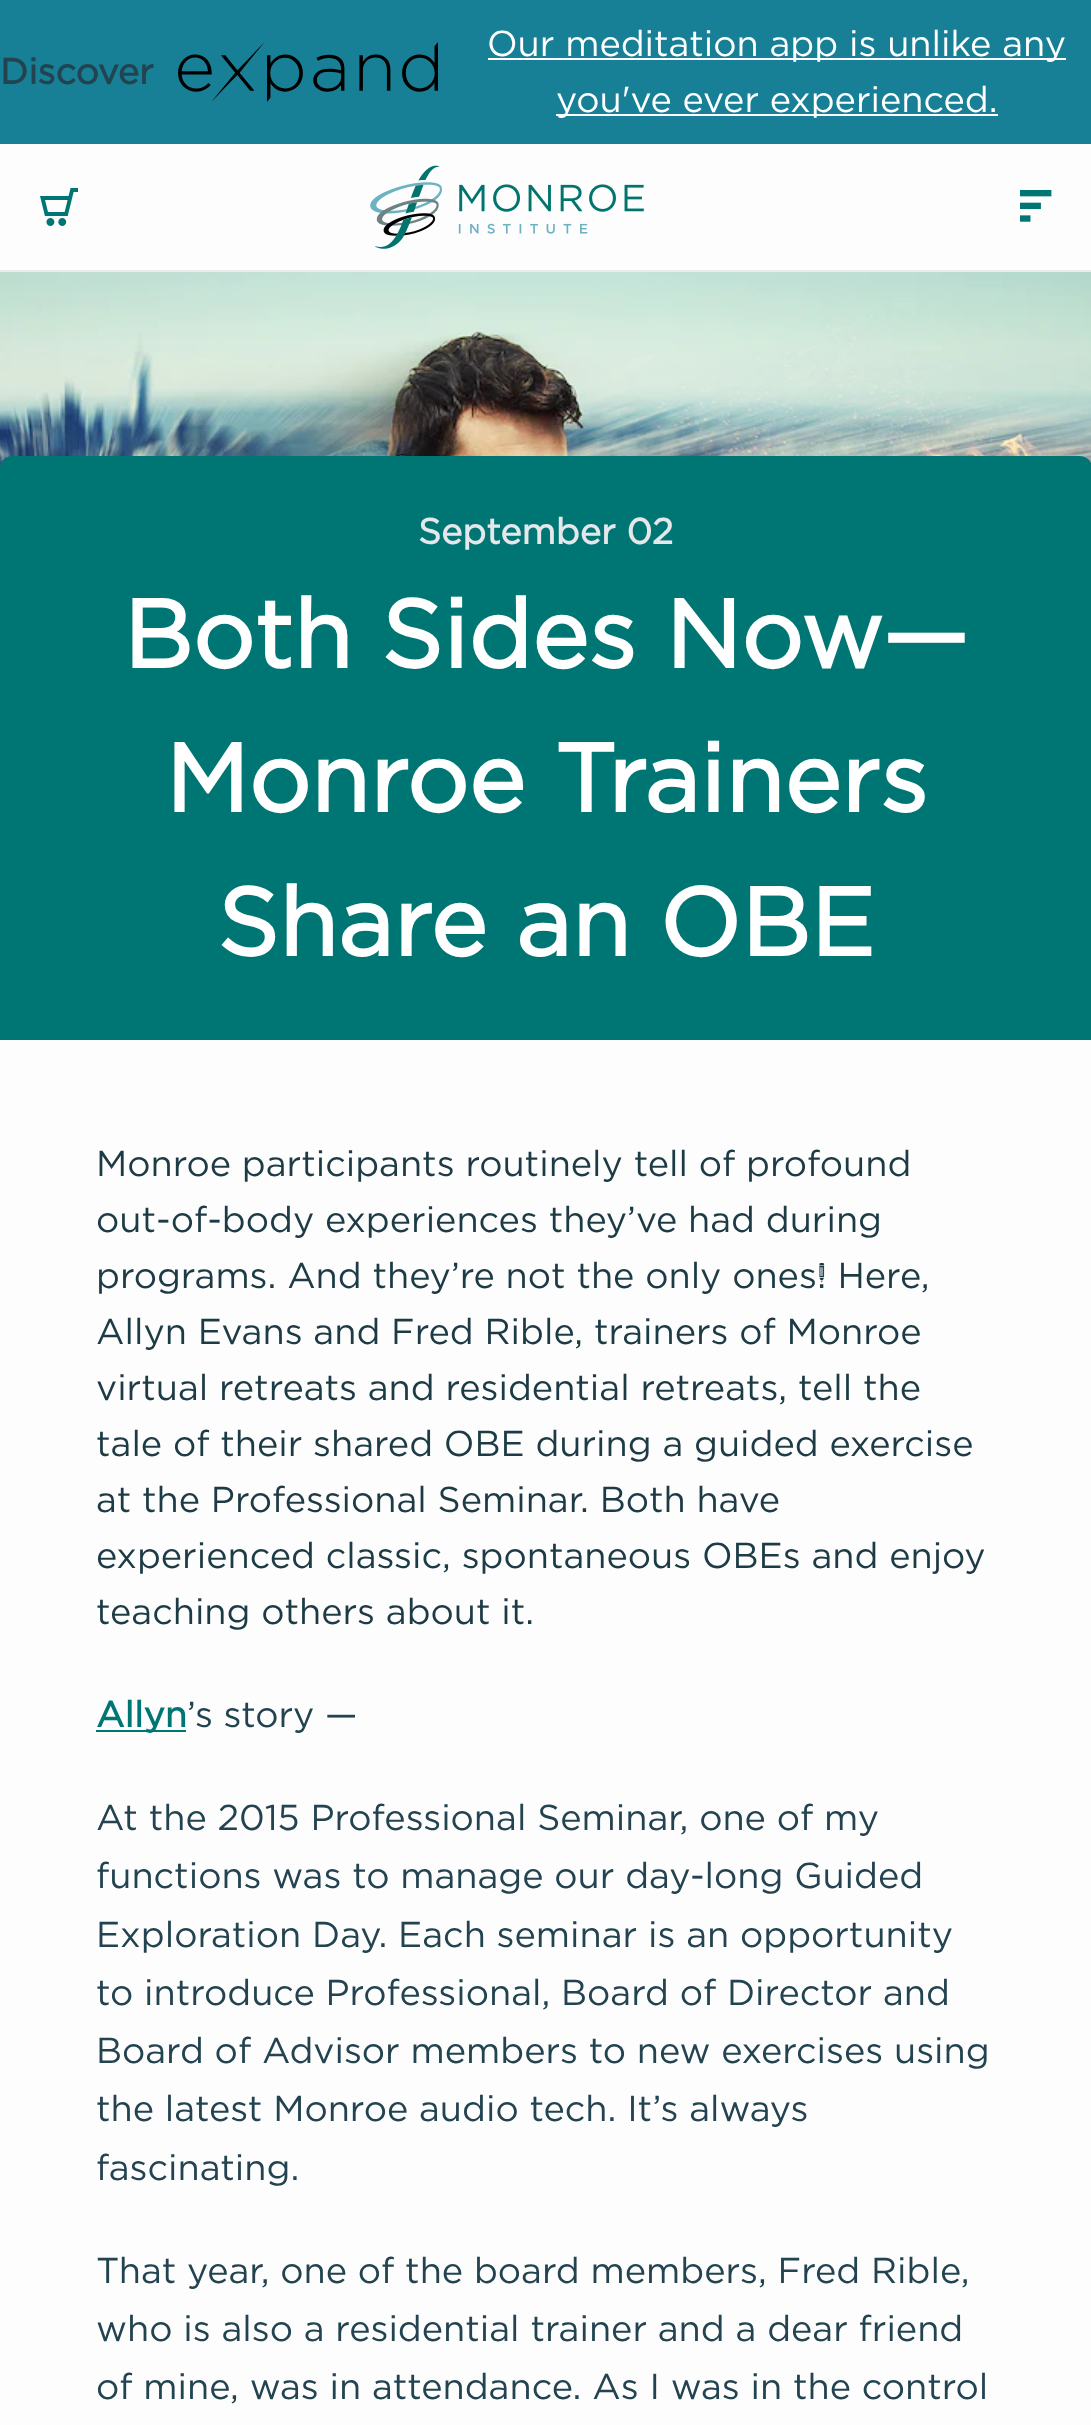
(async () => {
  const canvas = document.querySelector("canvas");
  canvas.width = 1091;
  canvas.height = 2425;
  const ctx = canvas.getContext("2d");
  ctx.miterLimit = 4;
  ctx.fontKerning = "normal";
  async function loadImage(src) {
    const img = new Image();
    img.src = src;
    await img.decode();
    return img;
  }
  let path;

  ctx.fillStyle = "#fdfdfe";
  ctx.fillRect(0, 0, 1091, 2425);
  ctx.fillStyle = "#188096";
  ctx.fillRect(0, 0, 1091, 144);
  ctx.drawImage(await loadImage("img/1.png"), 178, 42, 260, 60);
  for (const [x, y, w, h, color] of [
    [488, 58, 578, 2, "#ffffff"],
    [556, 114, 442, 2, "#ffffff"],
    [0, 270, 1091, 2, "#e8eced"],
  ]) {
    ctx.fillStyle = color;
    ctx.fillRect(x, y, w, h);
  }
  ctx.drawImage(await loadImage("img/2.png"), 40, 188, 38, 38);
  ctx.drawImage(await loadImage("img/3.png"), 370, 165, 274, 84);
  ctx.drawImage(await loadImage("img/4.png"), 1020, 190, 32, 32);
  ctx.drawImage(await loadImage("img/5.png"), 0, 272, 1091, 196);
  ctx.fillStyle = "#007674";
  path = new Path2D("M12 456H1080C1086.5 456 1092 461.5 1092 468V1040H0V468C0 461.5 5.5 456 12 456Z");
  ctx.fill(path);
  ctx.fillRect(96, 1730, 90, 2);
  ctx.font = "bold 36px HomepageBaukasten";
  ctx.fillStyle = "#22434f";
  ctx.fillText("Discover", 0, 84);
  ctx.font = "36px HomepageBaukasten";
  ctx.fillStyle = "#ffffff";
  ctx.fillText("Our meditation app is unlike any", 487, 56);
  ctx.fillText("you've ever experienced.", 556, 112);
  ctx.font = "bold 36px HomepageBaukasten";
  ctx.fillStyle = "#e5e7eb";
  ctx.fillText("September 02", 418, 544);
  ctx.font = "bold 96px HomepageBaukasten";
  ctx.fillStyle = "#ffffff";
  for (const [text, x, y] of [
    ["Both Sides Now—", 123, 668],
    ["Monroe Trainers", 165, 812],
    ["Share an OBE", 217, 956],
  ]) {
    ctx.fillText(text, x, y);
  }
  ctx.font = "36px HomepageBaukasten";
  ctx.fillStyle = "#1d3b45";
  for (const [text, x, y] of [
    ["Monroe participants routinely tell of profound", 96, 1176],
    ["out-of-body experiences they’ve had during", 96, 1232],
    ["programs. And they’re not the only ones! Here,", 96, 1288],
    ["Allyn Evans and Fred Rible, trainers of Monroe", 96, 1344],
    ["virtual retreats and residential retreats, tell the", 96, 1400],
    ["tale of their shared OBE during a guided exercise", 96, 1456],
    ["at the Professional Seminar. Both have", 96, 1512],
    ["experienced classic, spontaneous OBEs and enjoy", 96, 1568],
    ["teaching others about it.", 96, 1624],
  ]) {
    ctx.fillText(text, x, y);
  }
  ctx.font = "bold 36px HomepageBaukasten";
  ctx.fillStyle = "#007674";
  ctx.fillText("Allyn", 96, 1727);
  ctx.font = "36px HomepageBaukasten";
  ctx.fillStyle = "#22434f";
  for (const [text, x, y] of [
    ["’s story —", 187, 1727],
    ["At the 2015 Professional Seminar, one of my", 96, 1830],
    ["functions was to manage our day-long Guided", 96, 1888],
    ["Exploration Day. Each seminar is an opportunity", 96, 1947],
    ["to introduce Professional, Board of Director and", 96, 2005],
    ["Board of Advisor members to new exercises using", 96, 2063],
    ["the latest Monroe audio tech. It’s always", 96, 2121],
    ["fascinating.", 96, 2180],
    ["That year, one of the board members, Fred Rible,", 96, 2283],
    ["who is also a residential trainer and a dear friend", 96, 2341],
    ["of mine, was in attendance. As I was in the control", 96, 2399],
  ]) {
    ctx.fillText(text, x, y);
  }
})();
